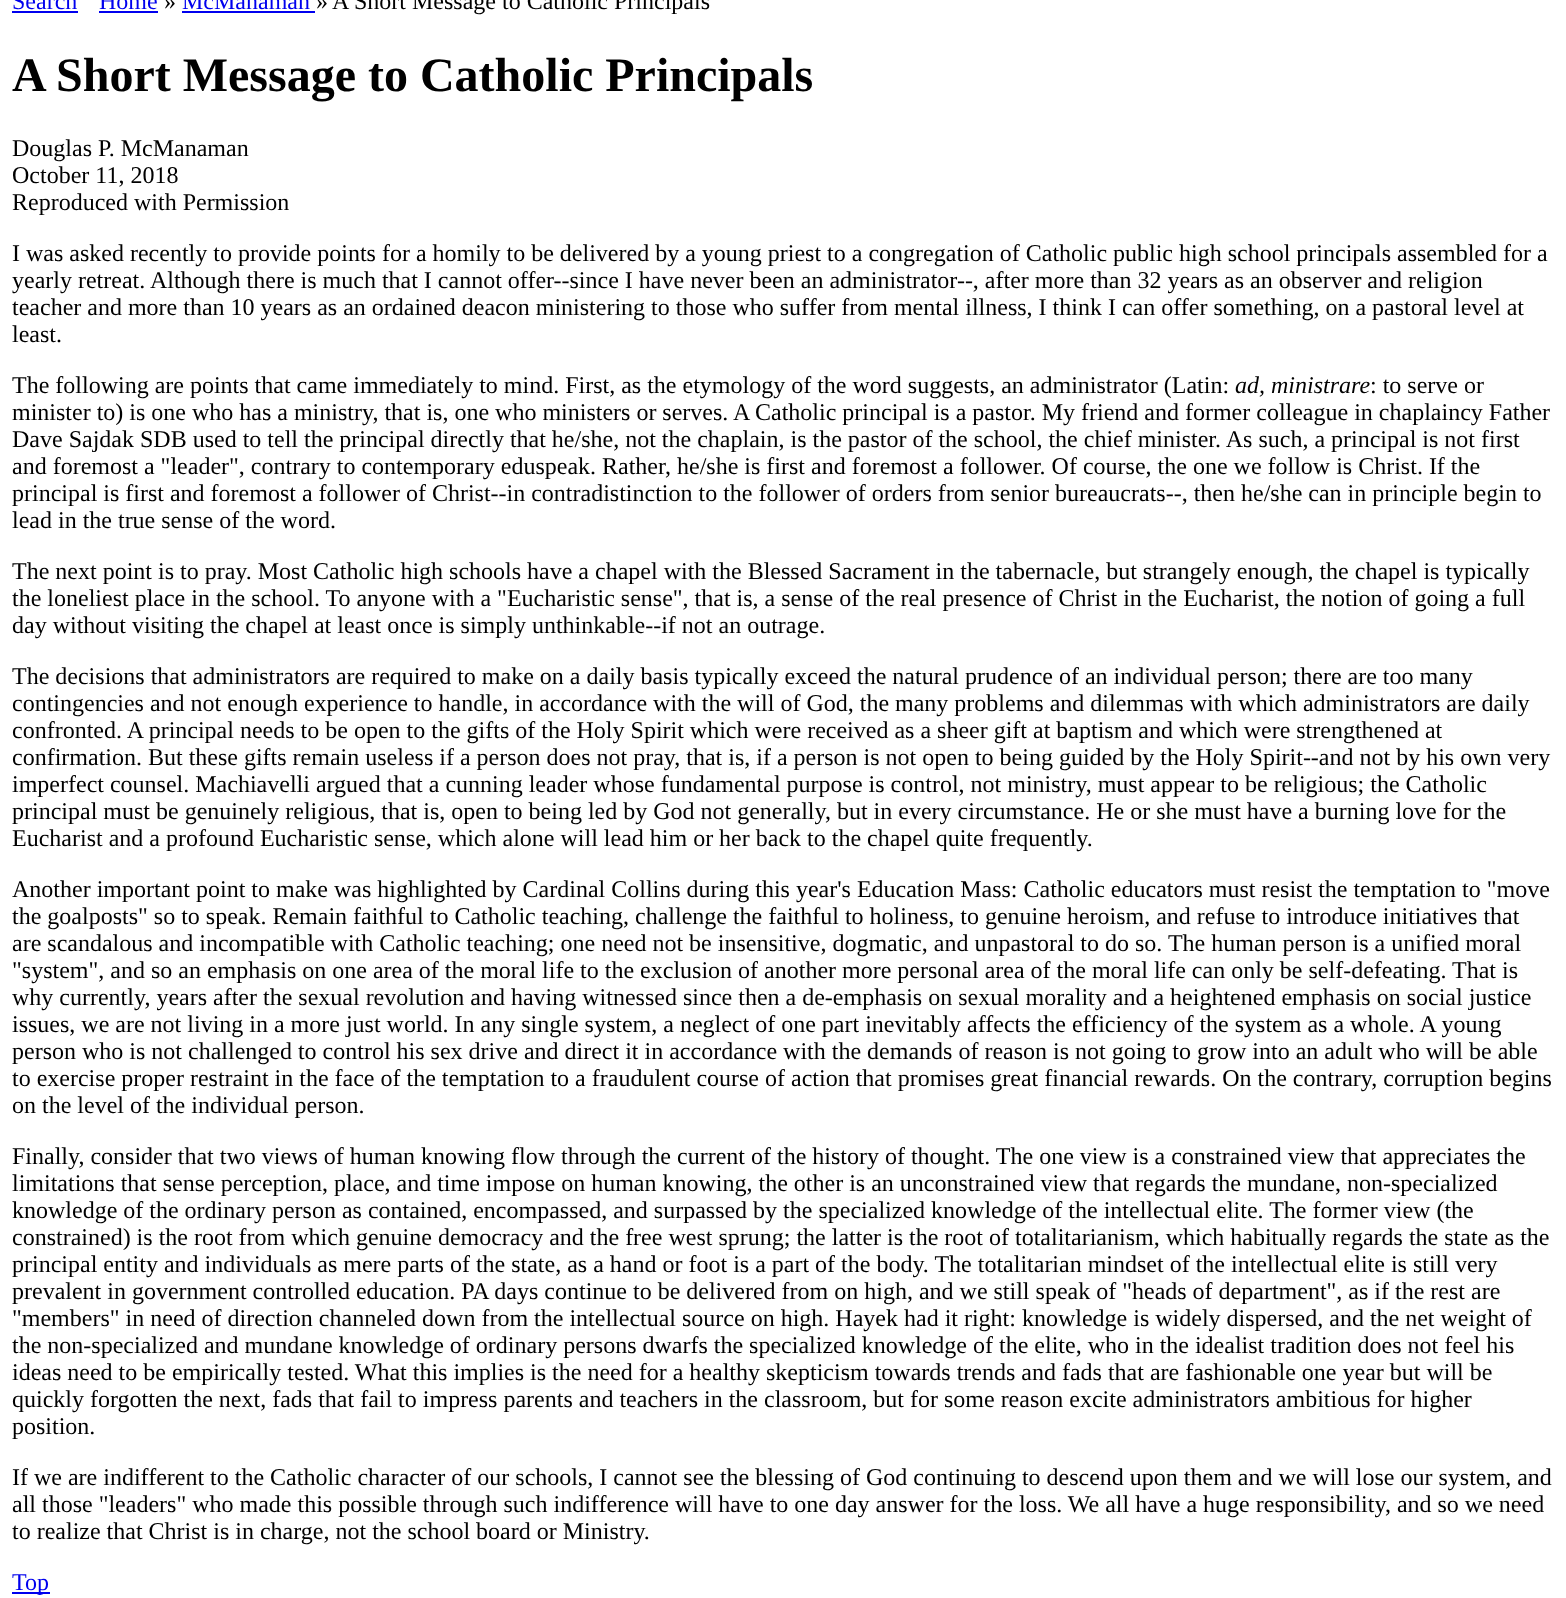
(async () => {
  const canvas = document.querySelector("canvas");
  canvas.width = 1566;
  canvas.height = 1598;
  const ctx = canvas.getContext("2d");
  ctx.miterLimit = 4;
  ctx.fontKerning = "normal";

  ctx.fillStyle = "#ffffff";
  ctx.fillRect(0, 0, 1566, 1598);
  for (const [x, y, w, h, color] of [
    [12, 11, 66, 2, "#0000ee"],
    [99, 11, 59, 2, "#0000ee"],
    [182, 11, 133, 2, "#0000ee"],
    [12, 1592, 38, 2, "#0000ee"],
  ]) {
    ctx.fillStyle = color;
    ctx.fillRect(x, y, w, h);
  }
  ctx.font = "24px Liberation Serif";
  ctx.fillText("Search", 12, 9);
  ctx.fillText("Home", 99, 9);
  ctx.fillStyle = "#000000";
  ctx.fillText("»", 164, 9);
  ctx.fillStyle = "#0000ee";
  ctx.fillText("McManaman", 182, 9);
  ctx.fillStyle = "#000000";
  ctx.fillText("»", 316, 9);
  ctx.fillText("A Short Message to Catholic Principals", 332, 9);
  ctx.font = "bold 48px Liberation Serif";
  ctx.fillText("A Short Message to Catholic Principals", 12, 91);
  ctx.font = "24px Liberation Serif";
  for (const [text, x, y] of [
    ["Douglas P. McManaman", 12, 156],
    ["October 11, 2018", 12, 183],
    ["Reproduced with Permission", 12, 210],
    ["I was asked recently to provide points for a homily to be delivered by a young priest to a congregation of Catholic public high school principals assembled for a", 12, 261],
    ["yearly retreat. Although there is much that I cannot offer--since I have never been an administrator--, after more than 32 years as an observer and religion", 12, 288],
    ["teacher and more than 10 years as an ordained deacon ministering to those who suffer from mental illness, I think I can offer something, on a pastoral level at", 12, 315],
    ["least.", 12, 342],
    ["The following are points that came immediately to mind. First, as the etymology of the word suggests, an administrator (Latin:", 12, 393],
  ]) {
    ctx.fillText(text, x, y);
  }
  ctx.font = "italic 24px Liberation Serif";
  ctx.fillText("ad, ministrare", 1235, 393);
  ctx.font = "24px Liberation Serif";
  for (const [text, x, y] of [
    [": to serve or", 1370, 393],
    ["minister to) is one who has a ministry, that is, one who ministers or serves. A Catholic principal is a pastor. My friend and former colleague in chaplaincy Father", 12, 420],
    ["Dave Sajdak SDB used to tell the principal directly that he/she, not the chaplain, is the pastor of the school, the chief minister. As such, a principal is not first", 12, 447],
    ["and foremost a \"leader\", contrary to contemporary eduspeak. Rather, he/she is first and foremost a follower. Of course, the one we follow is Christ. If the", 12, 474],
    ["principal is first and foremost a follower of Christ--in contradistinction to the follower of orders from senior bureaucrats--, then he/she can in principle begin to", 12, 501],
    ["lead in the true sense of the word.", 12, 528],
    ["The next point is to pray. Most Catholic high schools have a chapel with the Blessed Sacrament in the tabernacle, but strangely enough, the chapel is typically", 12, 579],
    ["the loneliest place in the school. To anyone with a \"Eucharistic sense\", that is, a sense of the real presence of Christ in the Eucharist, the notion of going a full", 12, 606],
    ["day without visiting the chapel at least once is simply unthinkable--if not an outrage.", 12, 633],
    ["The decisions that administrators are required to make on a daily basis typically exceed the natural prudence of an individual person; there are too many", 12, 684],
    ["contingencies and not enough experience to handle, in accordance with the will of God, the many problems and dilemmas with which administrators are daily", 12, 711],
    ["confronted. A principal needs to be open to the gifts of the Holy Spirit which were received as a sheer gift at baptism and which were strengthened at", 12, 738],
    ["confirmation. But these gifts remain useless if a person does not pray, that is, if a person is not open to being guided by the Holy Spirit--and not by his own very", 12, 765],
    ["imperfect counsel. Machiavelli argued that a cunning leader whose fundamental purpose is control, not ministry, must appear to be religious; the Catholic", 12, 792],
    ["principal must be genuinely religious, that is, open to being led by God not generally, but in every circumstance. He or she must have a burning love for the", 12, 819],
    ["Eucharist and a profound Eucharistic sense, which alone will lead him or her back to the chapel quite frequently.", 12, 846],
    ["Another important point to make was highlighted by Cardinal Collins during this year's Education Mass: Catholic educators must resist the temptation to \"move", 12, 897],
    ["the goalposts\" so to speak. Remain faithful to Catholic teaching, challenge the faithful to holiness, to genuine heroism, and refuse to introduce initiatives that", 12, 924],
    ["are scandalous and incompatible with Catholic teaching; one need not be insensitive, dogmatic, and unpastoral to do so. The human person is a unified moral", 12, 951],
    ["\"system\", and so an emphasis on one area of the moral life to the exclusion of another more personal area of the moral life can only be self-defeating. That is", 12, 978],
    ["why currently, years after the sexual revolution and having witnessed since then a de-emphasis on sexual morality and a heightened emphasis on social justice", 12, 1005],
    ["issues, we are not living in a more just world. In any single system, a neglect of one part inevitably affects the efficiency of the system as a whole. A young", 12, 1032],
    ["person who is not challenged to control his sex drive and direct it in accordance with the demands of reason is not going to grow into an adult who will be able", 12, 1059],
    ["to exercise proper restraint in the face of the temptation to a fraudulent course of action that promises great financial rewards. On the contrary, corruption begins", 12, 1086],
    ["on the level of the individual person.", 12, 1113],
    ["Finally, consider that two views of human knowing flow through the current of the history of thought. The one view is a constrained view that appreciates the", 12, 1164],
    ["limitations that sense perception, place, and time impose on human knowing, the other is an unconstrained view that regards the mundane, non-specialized", 12, 1191],
    ["knowledge of the ordinary person as contained, encompassed, and surpassed by the specialized knowledge of the intellectual elite. The former view (the", 12, 1218],
    ["constrained) is the root from which genuine democracy and the free west sprung; the latter is the root of totalitarianism, which habitually regards the state as the", 12, 1245],
    ["principal entity and individuals as mere parts of the state, as a hand or foot is a part of the body. The totalitarian mindset of the intellectual elite is still very", 12, 1272],
    ["prevalent in government controlled education. PA days continue to be delivered from on high, and we still speak of \"heads of department\", as if the rest are", 12, 1299],
    ["\"members\" in need of direction channeled down from the intellectual source on high. Hayek had it right: knowledge is widely dispersed, and the net weight of", 12, 1326],
    ["the non-specialized and mundane knowledge of ordinary persons dwarfs the specialized knowledge of the elite, who in the idealist tradition does not feel his", 12, 1353],
    ["ideas need to be empirically tested. What this implies is the need for a healthy skepticism towards trends and fads that are fashionable one year but will be", 12, 1380],
    ["quickly forgotten the next, fads that fail to impress parents and teachers in the classroom, but for some reason excite administrators ambitious for higher", 12, 1407],
    ["position.", 12, 1434],
    ["If we are indifferent to the Catholic character of our schools, I cannot see the blessing of God continuing to descend upon them and we will lose our system, and", 12, 1485],
    ["all those \"leaders\" who made this possible through such indifference will have to one day answer for the loss. We all have a huge responsibility, and so we need", 12, 1512],
    ["to realize that Christ is in charge, not the school board or Ministry.", 12, 1539],
  ]) {
    ctx.fillText(text, x, y);
  }
  ctx.fillStyle = "#0000ee";
  ctx.fillText("Top", 12, 1590);
})();
